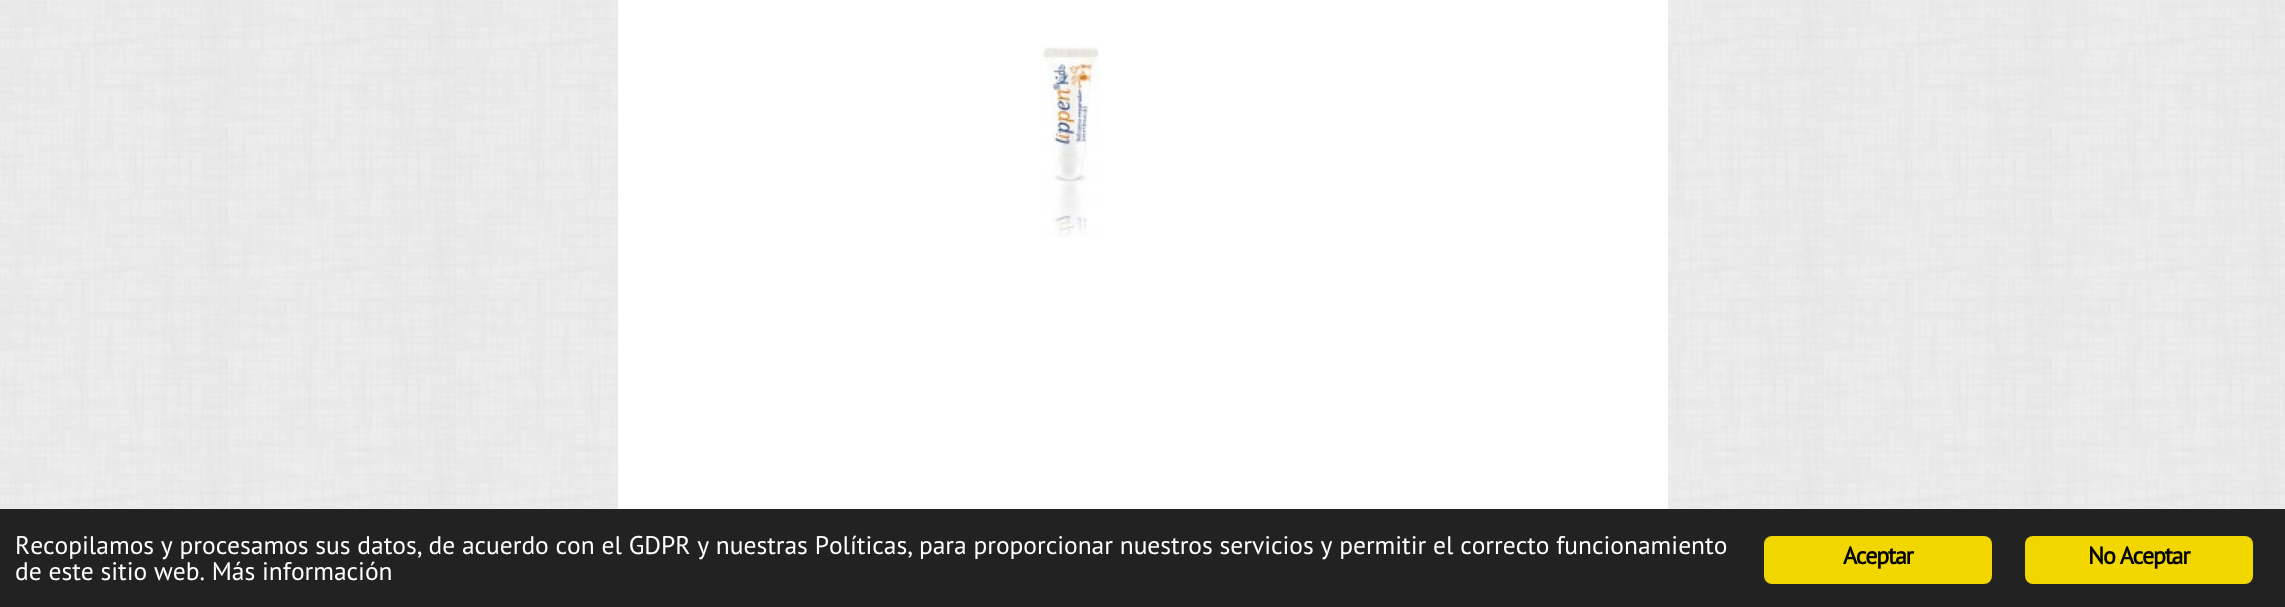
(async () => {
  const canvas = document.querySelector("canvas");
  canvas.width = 2285;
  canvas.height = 607;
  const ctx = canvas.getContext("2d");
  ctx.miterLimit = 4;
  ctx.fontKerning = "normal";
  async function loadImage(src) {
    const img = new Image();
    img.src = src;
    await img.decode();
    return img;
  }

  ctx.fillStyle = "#ffffff";
  ctx.fillRect(0, 0, 2285, 607);
  ctx.drawImage(await loadImage("img/1.png"), 0, 0, 2285, 509);
  ctx.fillRect(618, 0, 1050, 509);
  ctx.drawImage(await loadImage("img/2.png"), 1040, 45, 60, 192);
  ctx.fillStyle = "#222222";
  ctx.fillRect(0, 509, 2285, 98);
  ctx.fillStyle = "#f1d600";
  ctx.beginPath();
  ctx.roundRect(1764, 536, 228, 48, 8);
  ctx.fill();
  ctx.beginPath();
  ctx.roundRect(2025, 536, 228, 48, 8);
  ctx.fill();
  ctx.font = "25.5px PT Sans";
  ctx.fillStyle = "#ffffff";
  ctx.fillText("Recopilamos y procesamos sus datos, de acuerdo con el GDPR y nuestras Políticas, para proporcionar nuestros servicios y permitir el correcto funcionamiento", 15, 554);
  ctx.fillText("de este sitio web. Más información", 15, 580);
  ctx.letterSpacing = "-1.25px";
  ctx.font = "bold 24px PT Sans";
  ctx.fillStyle = "#000000";
  ctx.fillText("Aceptar", 1843, 564);
  ctx.fillText("No Aceptar", 2088, 564);
})();
